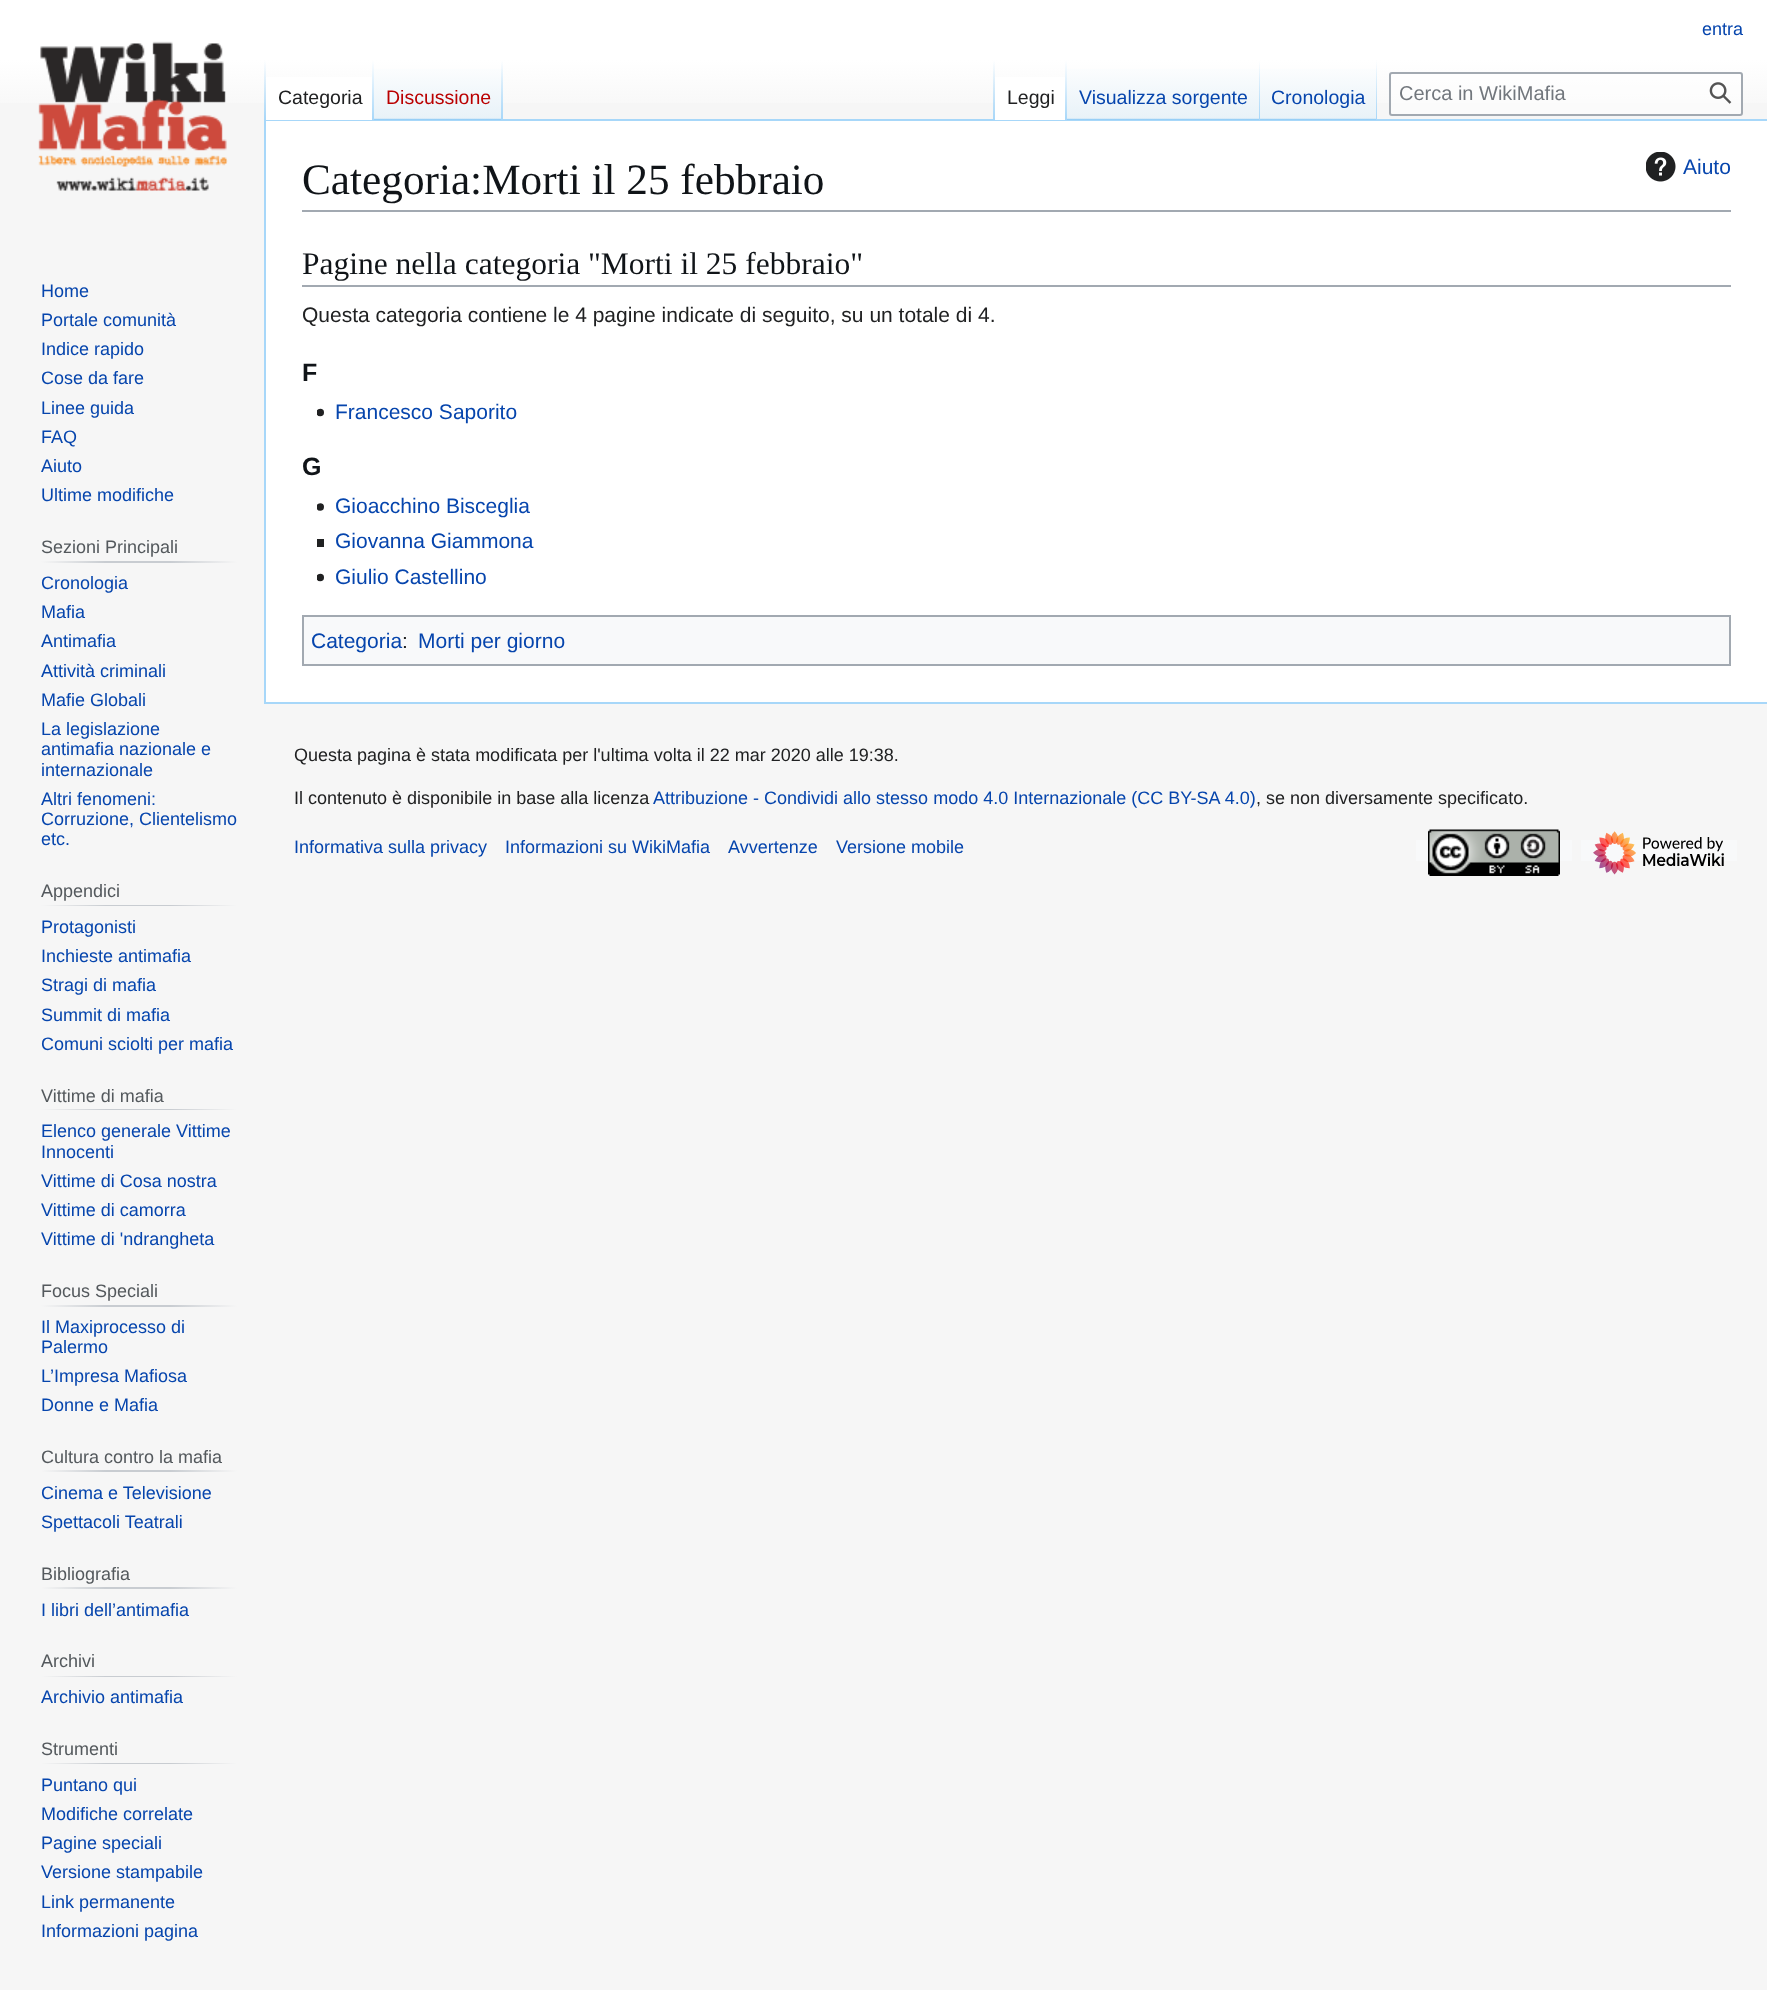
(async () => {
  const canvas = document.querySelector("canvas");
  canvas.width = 1767;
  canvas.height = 1990;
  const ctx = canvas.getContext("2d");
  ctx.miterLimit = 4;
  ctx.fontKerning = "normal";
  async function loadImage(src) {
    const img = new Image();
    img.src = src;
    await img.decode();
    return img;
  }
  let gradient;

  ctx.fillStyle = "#f6f6f6";
  ctx.fillRect(0, 0, 1767, 1990);
  gradient = ctx.createLinearGradient(884, 0, 884, 120);
  gradient.addColorStop(0.5, "#ffffff");
  gradient.addColorStop(1, "#f6f6f6");
  ctx.fillStyle = gradient;
  ctx.fillRect(0, 0, 1767, 103);
  for (const [x, y, w, h, color] of [
    [264, 119, 1503, 2, "#a7d7f9"],
    [264, 702, 1503, 2, "#a7d7f9"],
    [264, 119, 2, 585, "#a7d7f9"],
  ]) {
    ctx.fillStyle = color;
    ctx.fillRect(x, y, w, h);
  }
  gradient = ctx.createLinearGradient(265, 60, 265, 120);
  gradient.addColorStop(0, "rgba(167, 215, 249, 0)");
  gradient.addColorStop(1, "#a7d7f9");
  ctx.fillStyle = gradient;
  ctx.fillRect(264, 60, 2, 60);
  ctx.fillStyle = "#ffffff";
  ctx.fillRect(266, 77, 106, 43);
  gradient = ctx.createLinearGradient(373, 60, 373, 120);
  gradient.addColorStop(0, "#ffffff");
  gradient.addColorStop(1, "#a7d7f9");
  ctx.fillStyle = gradient;
  ctx.fillRect(372, 60, 2, 60);
  gradient = ctx.createLinearGradient(438, 120, 438, 60);
  gradient.addColorStop(0, "#77c1f6");
  gradient.addColorStop(0.03, "#e8f2f8");
  gradient.addColorStop(1, "#ffffff");
  ctx.fillStyle = gradient;
  ctx.fillRect(374, 69, 129, 51);
  gradient = ctx.createLinearGradient(502, 60, 502, 120);
  gradient.addColorStop(0, "rgba(167, 215, 249, 0)");
  gradient.addColorStop(1, "#a7d7f9");
  ctx.fillStyle = gradient;
  ctx.fillRect(501, 60, 2, 60);
  gradient = ctx.createLinearGradient(994, 60, 994, 120);
  gradient.addColorStop(0, "rgba(167, 215, 249, 0)");
  gradient.addColorStop(1, "#a7d7f9");
  ctx.fillStyle = gradient;
  ctx.fillRect(993, 60, 2, 60);
  ctx.fillStyle = "#ffffff";
  ctx.fillRect(995, 77, 70, 43);
  gradient = ctx.createLinearGradient(1066, 60, 1066, 120);
  gradient.addColorStop(0, "#ffffff");
  gradient.addColorStop(1, "#a7d7f9");
  ctx.fillStyle = gradient;
  ctx.fillRect(1065, 60, 2, 60);
  gradient = ctx.createLinearGradient(1163, 120, 1163, 60);
  gradient.addColorStop(0, "#77c1f6");
  gradient.addColorStop(0.03, "#e8f2f8");
  gradient.addColorStop(1, "#ffffff");
  ctx.fillStyle = gradient;
  ctx.fillRect(1067, 69, 193, 51);
  gradient = ctx.createLinearGradient(1259, 60, 1259, 120);
  gradient.addColorStop(0, "rgba(167, 215, 249, 0)");
  gradient.addColorStop(1, "#a7d7f9");
  ctx.fillStyle = gradient;
  ctx.fillRect(1259, 60, 1, 60);
  gradient = ctx.createLinearGradient(1319, 120, 1319, 60);
  gradient.addColorStop(0, "#77c1f6");
  gradient.addColorStop(0.03, "#e8f2f8");
  gradient.addColorStop(1, "#ffffff");
  ctx.fillStyle = gradient;
  ctx.fillRect(1260, 69, 117, 51);
  gradient = ctx.createLinearGradient(1376, 60, 1376, 120);
  gradient.addColorStop(0, "rgba(167, 215, 249, 0)");
  gradient.addColorStop(1, "#a7d7f9");
  ctx.fillStyle = gradient;
  ctx.fillRect(1376, 60, 1, 60);
  ctx.fillStyle = "rgba(255, 255, 255, 0.5)";
  ctx.beginPath();
  ctx.roundRect(1390, 73, 352, 42, 2);
  ctx.fill();
  ctx.strokeStyle = "#a2a9b1";
  ctx.lineWidth = 2;
  ctx.stroke();
  ctx.drawImage(await loadImage("img/1.png"), 1709, 82, 23, 22);
  ctx.drawImage(await loadImage("img/2.png"), 38, 41, 190, 150);
  gradient = ctx.createLinearGradient(41, 562, 237, 562);
  gradient.addColorStop(0, "#f6f6f6");
  gradient.addColorStop(0.33, "#c8ccd1");
  gradient.addColorStop(0.66, "#c8ccd1");
  gradient.addColorStop(1, "#f6f6f6");
  ctx.fillStyle = gradient;
  ctx.fillRect(41, 561, 196, 2);
  gradient = ctx.createLinearGradient(41, 905, 237, 905);
  gradient.addColorStop(0, "#f6f6f6");
  gradient.addColorStop(0.33, "#c8ccd1");
  gradient.addColorStop(0.66, "#c8ccd1");
  gradient.addColorStop(1, "#f6f6f6");
  ctx.fillStyle = gradient;
  ctx.fillRect(41, 905, 196, 1);
  gradient = ctx.createLinearGradient(41, 1109, 237, 1109);
  gradient.addColorStop(0, "#f6f6f6");
  gradient.addColorStop(0.33, "#c8ccd1");
  gradient.addColorStop(0.66, "#c8ccd1");
  gradient.addColorStop(1, "#f6f6f6");
  ctx.fillStyle = gradient;
  ctx.fillRect(41, 1109, 196, 1);
  gradient = ctx.createLinearGradient(41, 1306, 237, 1306);
  gradient.addColorStop(0, "#f6f6f6");
  gradient.addColorStop(0.33, "#c8ccd1");
  gradient.addColorStop(0.66, "#c8ccd1");
  gradient.addColorStop(1, "#f6f6f6");
  ctx.fillStyle = gradient;
  ctx.fillRect(41, 1305, 196, 2);
  gradient = ctx.createLinearGradient(41, 1471, 237, 1471);
  gradient.addColorStop(0, "#f6f6f6");
  gradient.addColorStop(0.33, "#c8ccd1");
  gradient.addColorStop(0.66, "#c8ccd1");
  gradient.addColorStop(1, "#f6f6f6");
  ctx.fillStyle = gradient;
  ctx.fillRect(41, 1470, 196, 2);
  gradient = ctx.createLinearGradient(41, 1588, 237, 1588);
  gradient.addColorStop(0, "#f6f6f6");
  gradient.addColorStop(0.33, "#c8ccd1");
  gradient.addColorStop(0.66, "#c8ccd1");
  gradient.addColorStop(1, "#f6f6f6");
  ctx.fillStyle = gradient;
  ctx.fillRect(41, 1587, 196, 2);
  gradient = ctx.createLinearGradient(41, 1676, 237, 1676);
  gradient.addColorStop(0, "#f6f6f6");
  gradient.addColorStop(0.33, "#c8ccd1");
  gradient.addColorStop(0.66, "#c8ccd1");
  gradient.addColorStop(1, "#f6f6f6");
  ctx.fillStyle = gradient;
  ctx.fillRect(41, 1676, 196, 1);
  gradient = ctx.createLinearGradient(41, 1763, 237, 1763);
  gradient.addColorStop(0, "#f6f6f6");
  gradient.addColorStop(0.33, "#c8ccd1");
  gradient.addColorStop(0.66, "#c8ccd1");
  gradient.addColorStop(1, "#f6f6f6");
  ctx.fillStyle = gradient;
  ctx.fillRect(41, 1763, 196, 1);
  ctx.fillStyle = "#ffffff";
  ctx.fillRect(266, 121, 1501, 581);
  ctx.fillStyle = "#a2a9b1";
  ctx.fillRect(302, 210, 1429, 2);
  ctx.drawImage(await loadImage("img/3.png"), 1646, 152, 30, 30);
  ctx.fillRect(302, 285, 1429, 2);
  ctx.drawImage(await loadImage("img/4.png"), 317, 408, 7, 9);
  ctx.drawImage(await loadImage("img/5.png"), 317, 503, 7, 8);
  ctx.fillStyle = "#202122";
  ctx.fillRect(317, 539, 7, 8);
  ctx.drawImage(await loadImage("img/4.png"), 317, 573, 7, 9);
  ctx.fillStyle = "#f8f9fa";
  ctx.beginPath();
  ctx.rect(303, 616, 1427, 49);
  ctx.fill();
  ctx.stroke();
  ctx.fillRect(1416, 840, 156, 21);
  ctx.drawImage(await loadImage("img/6.png"), 1428, 829, 132, 47);
  ctx.fillRect(1581, 840, 156, 21);
  ctx.drawImage(await loadImage("img/7.png"), 1593, 831, 131, 44);
  ctx.font = "18px Liberation Sans";
  ctx.fillStyle = "#0645ad";
  ctx.fillText("entra", 1702, 35);
  ctx.font = "19.5px Liberation Sans";
  ctx.fillStyle = "#202122";
  ctx.fillText("Categoria", 278, 104);
  ctx.fillStyle = "#ba0000";
  ctx.fillText("Discussione", 386, 104);
  ctx.fillStyle = "#202122";
  ctx.fillText("Leggi", 1007, 104);
  ctx.fillStyle = "#0645ad";
  ctx.fillText("Visualizza sorgente", 1079, 104);
  ctx.fillText("Cronologia", 1271, 104);
  ctx.font = "20px Liberation Sans";
  ctx.fillStyle = "#72777d";
  ctx.fillText("Cerca in WikiMafia", 1399, 100);
  ctx.font = "18px Liberation Sans";
  ctx.fillStyle = "#0645ad";
  for (const [text, x, y] of [
    ["Home", 41, 297],
    ["Portale comunità", 41, 326],
    ["Indice rapido", 41, 355],
    ["Cose da fare", 41, 384],
    ["Linee guida", 41, 414],
    ["FAQ", 41, 443],
    ["Aiuto", 41, 472],
    ["Ultime modifiche", 41, 501],
  ]) {
    ctx.fillText(text, x, y);
  }
  ctx.fillStyle = "#54595d";
  ctx.fillText("Sezioni Principali", 41, 553);
  ctx.fillStyle = "#0645ad";
  for (const [text, x, y] of [
    ["Cronologia", 41, 589],
    ["Mafia", 41, 618],
    ["Antimafia", 41, 647],
    ["Attività criminali", 41, 677],
    ["Mafie Globali", 41, 706],
    ["La legislazione", 41, 735],
    ["antimafia nazionale e", 41, 755],
    ["internazionale", 41, 776],
    ["Altri fenomeni:", 41, 805],
    ["Corruzione, Clientelismo", 41, 825],
    ["etc.", 41, 845],
  ]) {
    ctx.fillText(text, x, y);
  }
  ctx.fillStyle = "#54595d";
  ctx.fillText("Appendici", 41, 897);
  ctx.fillStyle = "#0645ad";
  for (const [text, x, y] of [
    ["Protagonisti", 41, 933],
    ["Inchieste antimafia", 41, 962],
    ["Stragi di mafia", 41, 991],
    ["Summit di mafia", 41, 1021],
    ["Comuni sciolti per mafia", 41, 1050],
  ]) {
    ctx.fillText(text, x, y);
  }
  ctx.fillStyle = "#54595d";
  ctx.fillText("Vittime di mafia", 41, 1102);
  ctx.fillStyle = "#0645ad";
  for (const [text, x, y] of [
    ["Elenco generale Vittime", 41, 1137],
    ["Innocenti", 41, 1158],
    ["Vittime di Cosa nostra", 41, 1187],
    ["Vittime di camorra", 41, 1216],
    ["Vittime di 'ndrangheta", 41, 1245],
  ]) {
    ctx.fillText(text, x, y);
  }
  ctx.fillStyle = "#54595d";
  ctx.fillText("Focus Speciali", 41, 1297);
  ctx.fillStyle = "#0645ad";
  for (const [text, x, y] of [
    ["Il Maxiprocesso di", 41, 1333],
    ["Palermo", 41, 1353],
    ["L’Impresa Mafiosa", 41, 1382],
    ["Donne e Mafia", 41, 1411],
  ]) {
    ctx.fillText(text, x, y);
  }
  ctx.fillStyle = "#54595d";
  ctx.fillText("Cultura contro la mafia", 41, 1463);
  ctx.fillStyle = "#0645ad";
  ctx.fillText("Cinema e Televisione", 41, 1499);
  ctx.fillText("Spettacoli Teatrali", 41, 1528);
  ctx.fillStyle = "#54595d";
  ctx.fillText("Bibliografia", 41, 1580);
  ctx.fillStyle = "#0645ad";
  ctx.fillText("I libri dell’antimafia", 41, 1616);
  ctx.fillStyle = "#54595d";
  ctx.fillText("Archivi", 41, 1667);
  ctx.fillStyle = "#0645ad";
  ctx.fillText("Archivio antimafia", 41, 1703);
  ctx.fillStyle = "#54595d";
  ctx.fillText("Strumenti", 41, 1755);
  ctx.fillStyle = "#0645ad";
  for (const [text, x, y] of [
    ["Puntano qui", 41, 1791],
    ["Modifiche correlate", 41, 1820],
    ["Pagine speciali", 41, 1849],
    ["Versione stampabile", 41, 1878],
    ["Link permanente", 41, 1908],
    ["Informazioni pagina", 41, 1937],
  ]) {
    ctx.fillText(text, x, y);
  }
  ctx.font = "43.25px Liberation Serif";
  ctx.fillStyle = "#101418";
  ctx.fillText("Categoria:Morti il 25 febbraio", 302, 194);
  ctx.font = "21px Liberation Sans";
  ctx.fillStyle = "#0645ad";
  ctx.fillText("Aiuto", 1683, 174);
  ctx.font = "31.5px Liberation Serif";
  ctx.fillStyle = "#101418";
  ctx.fillText("Pagine nella categoria \"Morti il 25 febbraio\"", 302, 274);
  ctx.font = "21px Liberation Sans";
  ctx.fillStyle = "#202122";
  ctx.fillText("Questa categoria contiene le 4 pagine indicate di seguito, su un totale di 4.", 302, 322);
  ctx.font = "bold 25px Liberation Sans";
  ctx.fillStyle = "#101418";
  ctx.fillText("F", 302, 381);
  ctx.font = "21px Liberation Sans";
  ctx.fillStyle = "#0645ad";
  ctx.fillText("Francesco Saporito", 335, 419);
  ctx.font = "bold 25px Liberation Sans";
  ctx.fillStyle = "#101418";
  ctx.fillText("G", 302, 475);
  ctx.font = "21px Liberation Sans";
  ctx.fillStyle = "#0645ad";
  for (const [text, x, y] of [
    ["Gioacchino Bisceglia", 335, 513],
    ["Giovanna Giammona", 335, 548],
    ["Giulio Castellino", 335, 584],
    ["Categoria", 311, 648],
  ]) {
    ctx.fillText(text, x, y);
  }
  ctx.fillStyle = "#202122";
  ctx.fillText(":", 402, 648);
  ctx.fillStyle = "#0645ad";
  ctx.fillText("Morti per giorno", 418, 648);
  ctx.font = "18px Liberation Sans";
  ctx.fillStyle = "#202122";
  ctx.fillText("Questa pagina è stata modificata per l'ultima volta il 22 mar 2020 alle 19:38.", 294, 761);
  ctx.fillText("Il contenuto è disponibile in base alla licenza", 294, 804);
  ctx.fillStyle = "#0645ad";
  ctx.fillText("Attribuzione - Condividi allo stesso modo 4.0 Internazionale (CC BY-SA 4.0)", 653, 804);
  ctx.fillStyle = "#202122";
  ctx.fillText(", se non diversamente specificato.", 1256, 804);
  ctx.fillStyle = "#0645ad";
  for (const [text, x, y] of [
    ["Informativa sulla privacy", 294, 853],
    ["Informazioni su WikiMafia", 505, 853],
    ["Avvertenze", 728, 853],
    ["Versione mobile", 836, 853],
  ]) {
    ctx.fillText(text, x, y);
  }
})();
